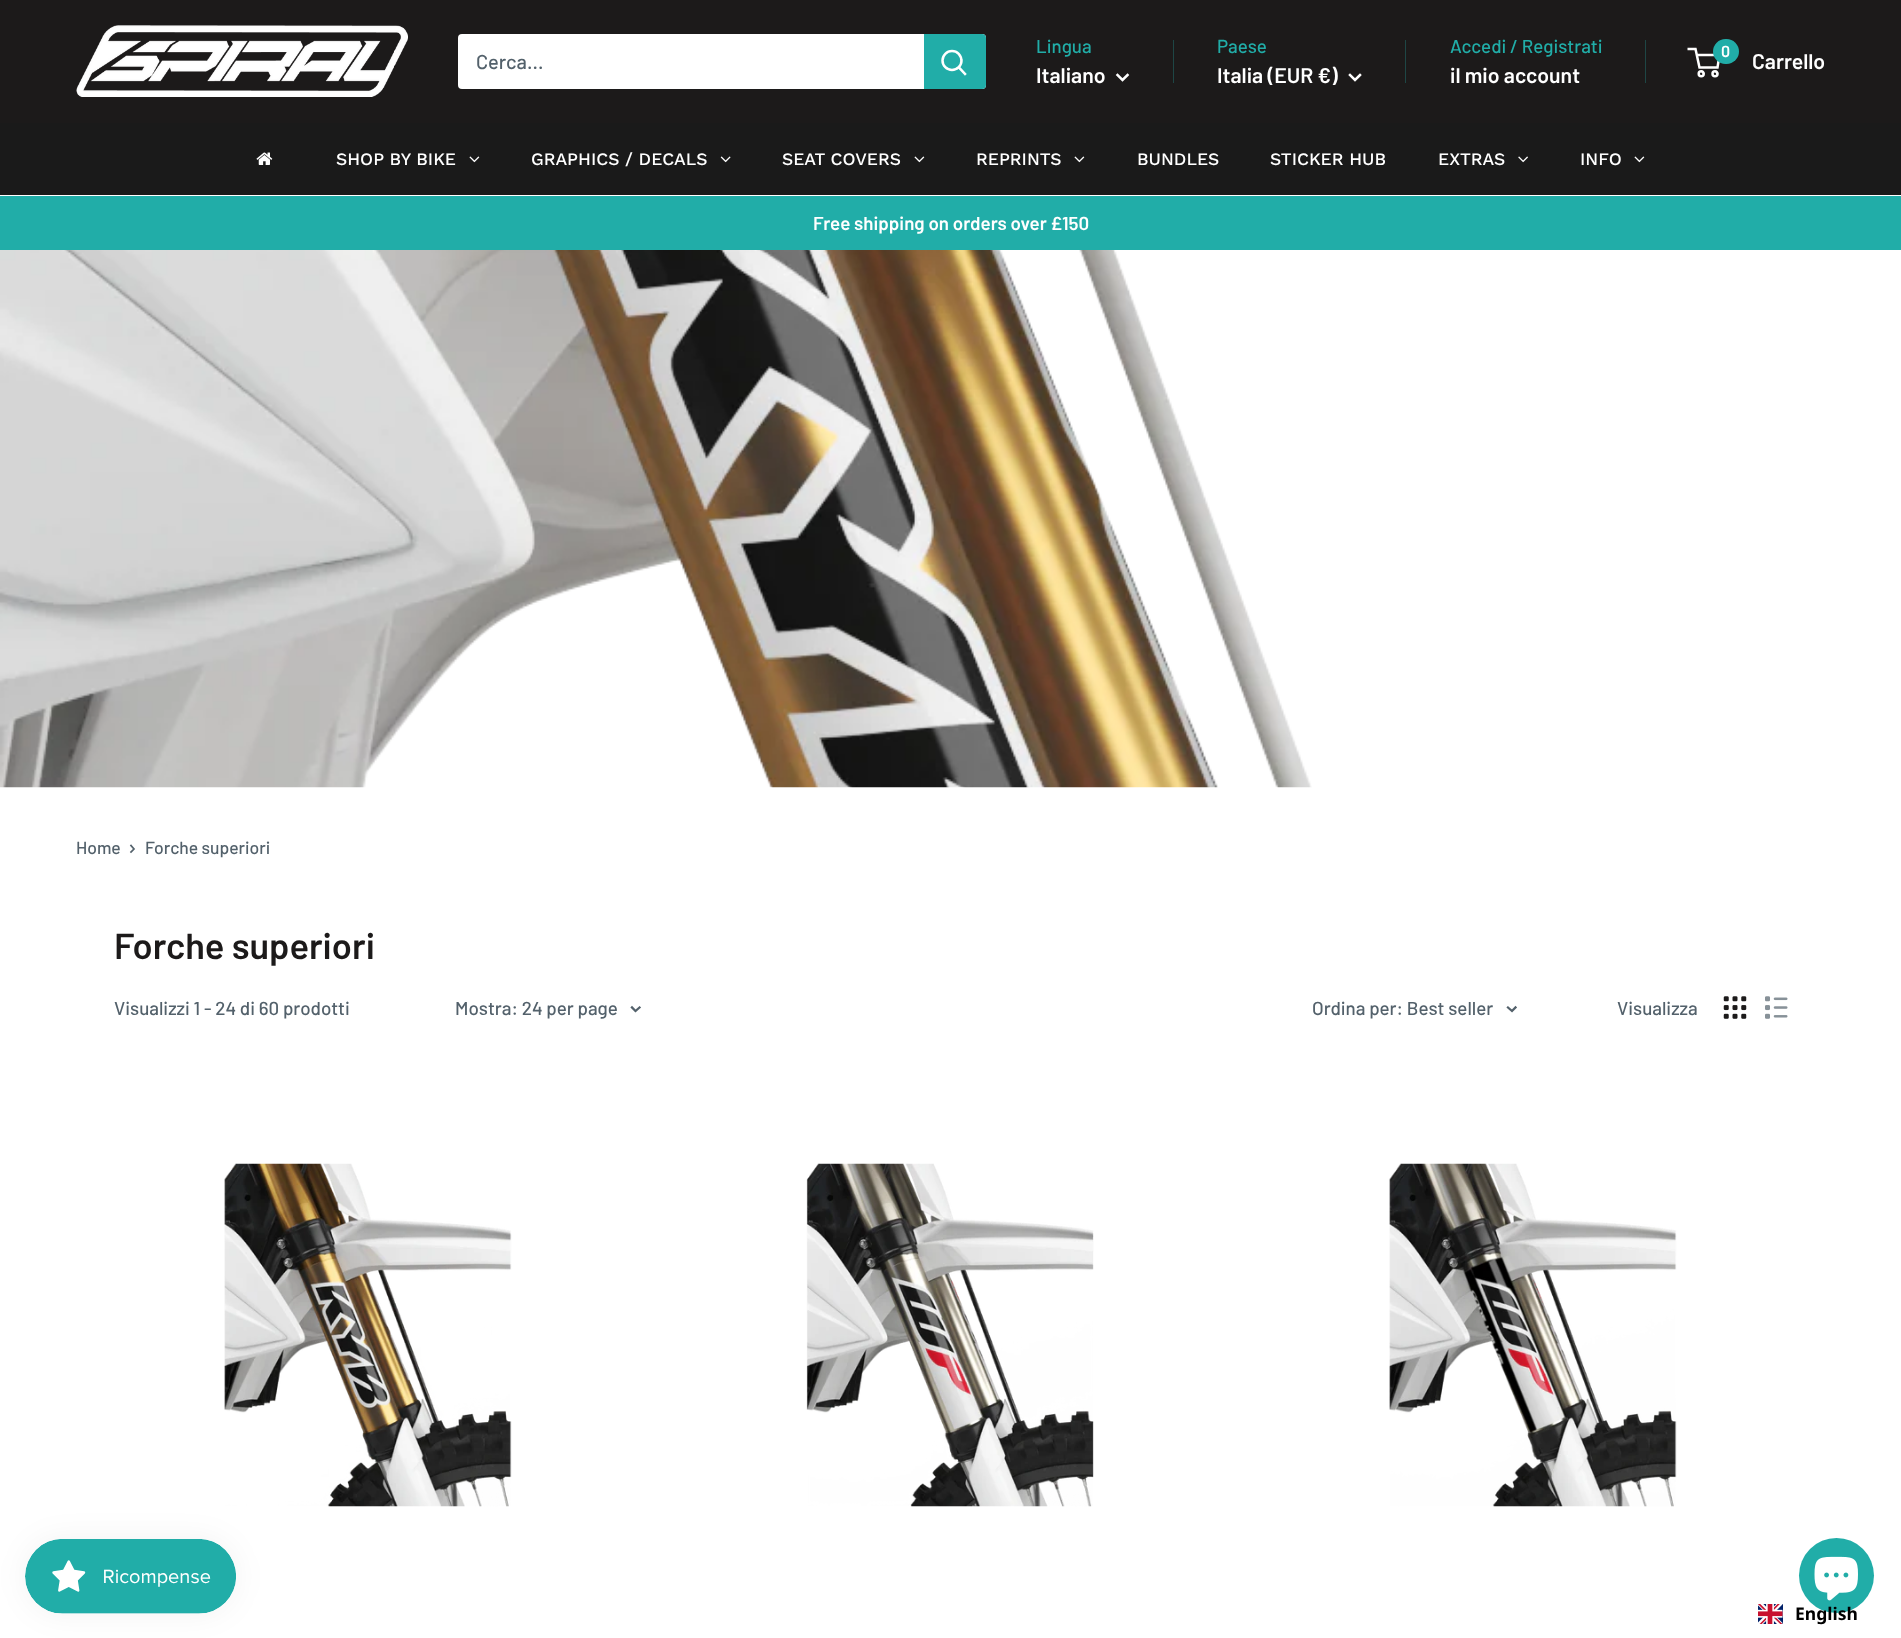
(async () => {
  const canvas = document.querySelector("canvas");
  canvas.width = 1901;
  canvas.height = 1638;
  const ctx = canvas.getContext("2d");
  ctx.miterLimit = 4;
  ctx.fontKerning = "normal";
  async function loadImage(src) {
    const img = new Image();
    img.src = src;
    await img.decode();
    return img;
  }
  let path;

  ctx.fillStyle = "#ffffff";
  ctx.fillRect(0, 0, 1901, 1638);
  ctx.fillStyle = "#1c1a1a";
  ctx.fillRect(0, 0, 1901, 123);
  ctx.drawImage(await loadImage("img/1.png"), 76, 25, 332, 72);
  ctx.fillStyle = "#ffffff";
  ctx.beginPath();
  ctx.roundRect(458, 34, 528, 55, 4);
  ctx.fill();
  ctx.fillStyle = "#21ada8";
  ctx.beginPath();
  ctx.roundRect(924, 34, 62, 55, [0, 4, 4, 0]);
  ctx.fill();
  path = new Path2D("M965 74L959 67.5");
  ctx.strokeStyle = "#ffffff";
  ctx.lineWidth = 2.5;
  ctx.lineCap = "square";
  ctx.stroke(path);
  ctx.beginPath();
  ctx.arc(952, 60.5, 9.5, 0, Math.PI * 2);
  ctx.stroke();
  path = new Path2D("M1127.5 75L1122.5 80L1117.5 75");
  ctx.stroke(path);
  ctx.fillStyle = "#1e4645";
  ctx.fillRect(1173, 40, 1, 43);
  path = new Path2D("M1360 75L1355 80L1350 75");
  ctx.stroke(path);
  ctx.fillRect(1405, 40, 1, 43);
  ctx.fillRect(1645, 40, 1, 43);
  ctx.beginPath();
  ctx.arc(1701.2, 73.8, 2.5, 0, Math.PI * 2);
  ctx.stroke();
  ctx.beginPath();
  ctx.arc(1715, 73.8, 2.5, 0, Math.PI * 2);
  ctx.stroke();
  path = new Path2D("M1696.5 55H1719.5L1717.5 67.5H1699.5L1695.5 49H1687.5");
  ctx.lineCap = "butt";
  ctx.stroke(path);
  ctx.fillStyle = "#21ada8";
  ctx.beginPath();
  ctx.roundRect(1713, 39, 26, 25, 12.5);
  ctx.fill();
  ctx.fillStyle = "#1a1a1a";
  ctx.fillRect(0, 123, 1901, 72);
  ctx.drawImage(await loadImage("img/2.png"), 256, 152, 17, 13);
  ctx.drawImage(await loadImage("img/3.png"), 469, 156, 11, 7);
  ctx.drawImage(await loadImage("img/4.png"), 720, 156, 11, 7);
  ctx.drawImage(await loadImage("img/3.png"), 914, 156, 11, 7);
  ctx.drawImage(await loadImage("img/3.png"), 1074, 156, 11, 7);
  ctx.drawImage(await loadImage("img/5.png"), 1518, 156, 10, 7);
  ctx.drawImage(await loadImage("img/3.png"), 1634, 156, 11, 7);
  ctx.fillStyle = "#21ada8";
  ctx.fillRect(0, 196, 1901, 54);
  ctx.drawImage(await loadImage("img/6.png"), 0, 250, 1312, 538);
  path = new Path2D("M131 845.5L134 849L131 852");
  ctx.strokeStyle = "#53616b";
  ctx.lineWidth = 1.7;
  ctx.lineCap = "square";
  ctx.stroke(path);
  path = new Path2D("M639.5 1007.5L635.5 1011L632 1007.5");
  ctx.lineWidth = 2.3;
  ctx.stroke(path);
  path = new Path2D("M1515.5 1007.5L1512 1011L1508 1007.5");
  ctx.stroke(path);
  ctx.drawImage(await loadImage("img/7.png"), 1723, 996, 24, 23);
  ctx.drawImage(await loadImage("img/8.png"), 1765, 996, 23, 23);
  ctx.drawImage(await loadImage("img/9.png"), 224, 1163, 288, 344);
  ctx.drawImage(await loadImage("img/10.png"), 806, 1163, 288, 344);
  ctx.drawImage(await loadImage("img/11.png"), 1389, 1163, 288, 344);
  ctx.fillStyle = "rgba(0, 0, 0, 0.05)";
  ctx.filter = "blur(15.5px)";
  ctx.beginPath();
  ctx.roundRect(25, 1539, 211, 75, 37.5);
  ctx.fill();
  ctx.filter = "none";
  ctx.drawImage(await loadImage("img/12.png"), 25, 1539, 211, 75);
  ctx.fillStyle = "#21ada8";
  ctx.beginPath();
  ctx.arc(1836.5, 1575.5, 37.5, 0, Math.PI * 2);
  ctx.fill();
  ctx.drawImage(await loadImage("img/13.png"), 1814, 1556, 44, 45);
  ctx.drawImage(await loadImage("img/14.png"), 1758, 1604, 25, 20);
  ctx.font = "500 20px Barlow";
  ctx.fillStyle = "#53616b";
  ctx.fillText("Cerca...", 476, 69);
  ctx.font = "500 18.75px Barlow";
  ctx.fillStyle = "#21ada8";
  ctx.fillText("Lingua", 1036, 53);
  ctx.font = "600 21.25px Barlow";
  ctx.fillStyle = "#ffffff";
  ctx.fillText("Italiano", 1036, 83);
  ctx.font = "500 18.75px Barlow";
  ctx.fillStyle = "#21ada8";
  ctx.fillText("Paese", 1217, 53);
  ctx.font = "600 21.25px Barlow";
  ctx.fillStyle = "#ffffff";
  ctx.fillText("Italia (EUR €)", 1217, 83);
  ctx.font = "500 18.75px Barlow";
  ctx.fillStyle = "#21ada8";
  ctx.fillText("Accedi / Registrati", 1450, 53);
  ctx.font = "600 21.25px Barlow";
  ctx.fillStyle = "#ffffff";
  ctx.fillText("il mio account", 1450, 83);
  ctx.font = "600 16px Barlow";
  ctx.fillText("0", 1721, 57);
  ctx.font = "600 21.25px Barlow";
  ctx.fillText("Carrello", 1752, 69);
  ctx.font = "500 17.5px Work Sans";
  for (const [text, x, y] of [
    ["SHOP BY BIKE", 336, 165],
    ["GRAPHICS / DECALS", 531, 165],
    ["SEAT COVERS", 782, 165],
    ["REPRINTS", 976, 165],
    ["BUNDLES", 1137, 165],
    ["STICKER HUB", 1270, 165],
    ["EXTRAS", 1438, 165],
    ["INFO", 1580, 165],
  ]) {
    ctx.fillText(text, x, y);
  }
  ctx.font = "600 18.75px Barlow";
  ctx.fillText("Free shipping on orders over £150", 813, 230);
  ctx.font = "500 17.5px Barlow";
  ctx.fillStyle = "#53616b";
  ctx.fillText("Home", 76, 854);
  ctx.fillText("Forche superiori", 145, 854);
  ctx.font = "600 36.25px Barlow";
  ctx.fillStyle = "#1c1a1a";
  ctx.fillText("Forche superiori", 114, 959);
  ctx.font = "500 18.75px Barlow";
  ctx.fillStyle = "#53616b";
  for (const [text, x, y] of [
    ["Visualizzi 1 - 24 di 60 prodotti", 114, 1015],
    ["Mostra: 24 per page", 455, 1015],
    ["Ordina per: Best seller", 1312, 1015],
    ["Visualizza", 1617, 1015],
  ]) {
    ctx.fillText(text, x, y);
  }
  ctx.font = "bold 17.5px Noto Sans";
  ctx.fillStyle = "#000000";
  ctx.fillText("English", 1795, 1620);
})();
